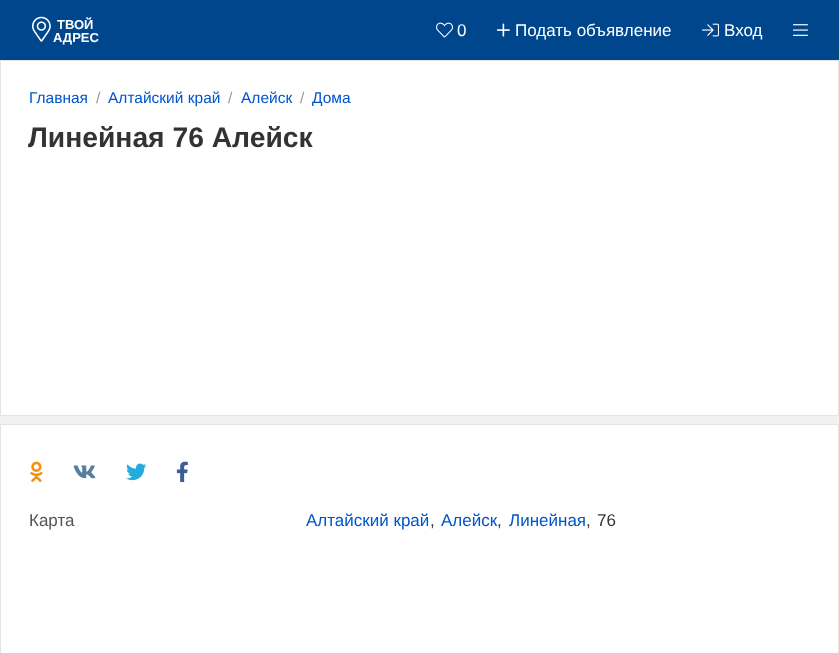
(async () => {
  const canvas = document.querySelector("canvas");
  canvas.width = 839;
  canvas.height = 653;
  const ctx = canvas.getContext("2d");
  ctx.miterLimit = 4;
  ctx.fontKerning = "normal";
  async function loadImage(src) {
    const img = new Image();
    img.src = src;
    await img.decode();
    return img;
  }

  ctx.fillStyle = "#f1f1f1";
  ctx.fillRect(0, 0, 839, 653);
  ctx.fillStyle = "#00468c";
  ctx.fillRect(0, 0, 839, 60);
  ctx.drawImage(await loadImage("img/1.png"), 32, 16, 19, 26);
  ctx.drawImage(await loadImage("img/2.png"), 436, 22, 17, 16);
  ctx.drawImage(await loadImage("img/3.png"), 497, 23, 13, 14);
  ctx.drawImage(await loadImage("img/4.png"), 702, 23, 17, 14);
  ctx.drawImage(await loadImage("img/5.png"), 793, 24, 15, 12);
  ctx.fillStyle = "#ffffff";
  ctx.beginPath();
  ctx.rect(0.5, 60.5, 838, 355);
  ctx.fill();
  ctx.strokeStyle = "#e4e4e4";
  ctx.stroke();
  ctx.beginPath();
  ctx.rect(0.5, 424.5, 838, 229);
  ctx.fill();
  ctx.stroke();
  ctx.drawImage(await loadImage("img/6.png"), 30, 461, 13, 21);
  ctx.drawImage(await loadImage("img/7.png"), 73, 465, 23, 14);
  ctx.drawImage(await loadImage("img/8.png"), 126, 463, 21, 18);
  ctx.drawImage(await loadImage("img/9.png"), 176, 461, 12, 22);
  ctx.font = "bold 13px Liberation Sans";
  ctx.fillText("ТВОЙ", 57, 29);
  ctx.fillText("АДРЕС", 53, 42);
  ctx.font = "17px Liberation Sans";
  for (const [text, x, y] of [
    ["0", 457, 36],
    ["Подать объявление", 515, 36],
    ["Вход", 724, 36],
  ]) {
    ctx.fillText(text, x, y);
  }
  ctx.font = "15.5px Liberation Sans";
  ctx.fillStyle = "#0055cc";
  ctx.fillText("Главная", 29, 103);
  ctx.fillStyle = "#999999";
  ctx.fillText("/", 96, 103);
  ctx.fillStyle = "#0055cc";
  ctx.fillText("Алтайский край", 108, 103);
  ctx.fillStyle = "#999999";
  ctx.fillText("/", 228, 103);
  ctx.fillStyle = "#0055cc";
  ctx.fillText("Алейск", 241, 103);
  ctx.fillStyle = "#999999";
  ctx.fillText("/", 300, 103);
  ctx.fillStyle = "#0055cc";
  ctx.fillText("Дома", 312, 103);
  ctx.font = "bold 28.25px Liberation Sans";
  ctx.fillStyle = "#333333";
  ctx.fillText("Линейная 76 Алейск", 28, 147);
  ctx.font = "17px Liberation Sans";
  ctx.fillStyle = "#555555";
  ctx.fillText("Карта", 29, 526);
  ctx.fillStyle = "#0055cc";
  ctx.fillText("Алтайский край", 306, 526);
  ctx.fillStyle = "#333333";
  ctx.fillText(",", 430, 526);
  ctx.fillStyle = "#0055cc";
  ctx.fillText("Алейск", 441, 526);
  ctx.fillStyle = "#333333";
  ctx.fillText(",", 497, 526);
  ctx.fillStyle = "#0055cc";
  ctx.fillText("Линейная", 509, 526);
  ctx.fillStyle = "#333333";
  ctx.fillText(",", 586, 526);
  ctx.fillText("76", 597, 526);
})();
